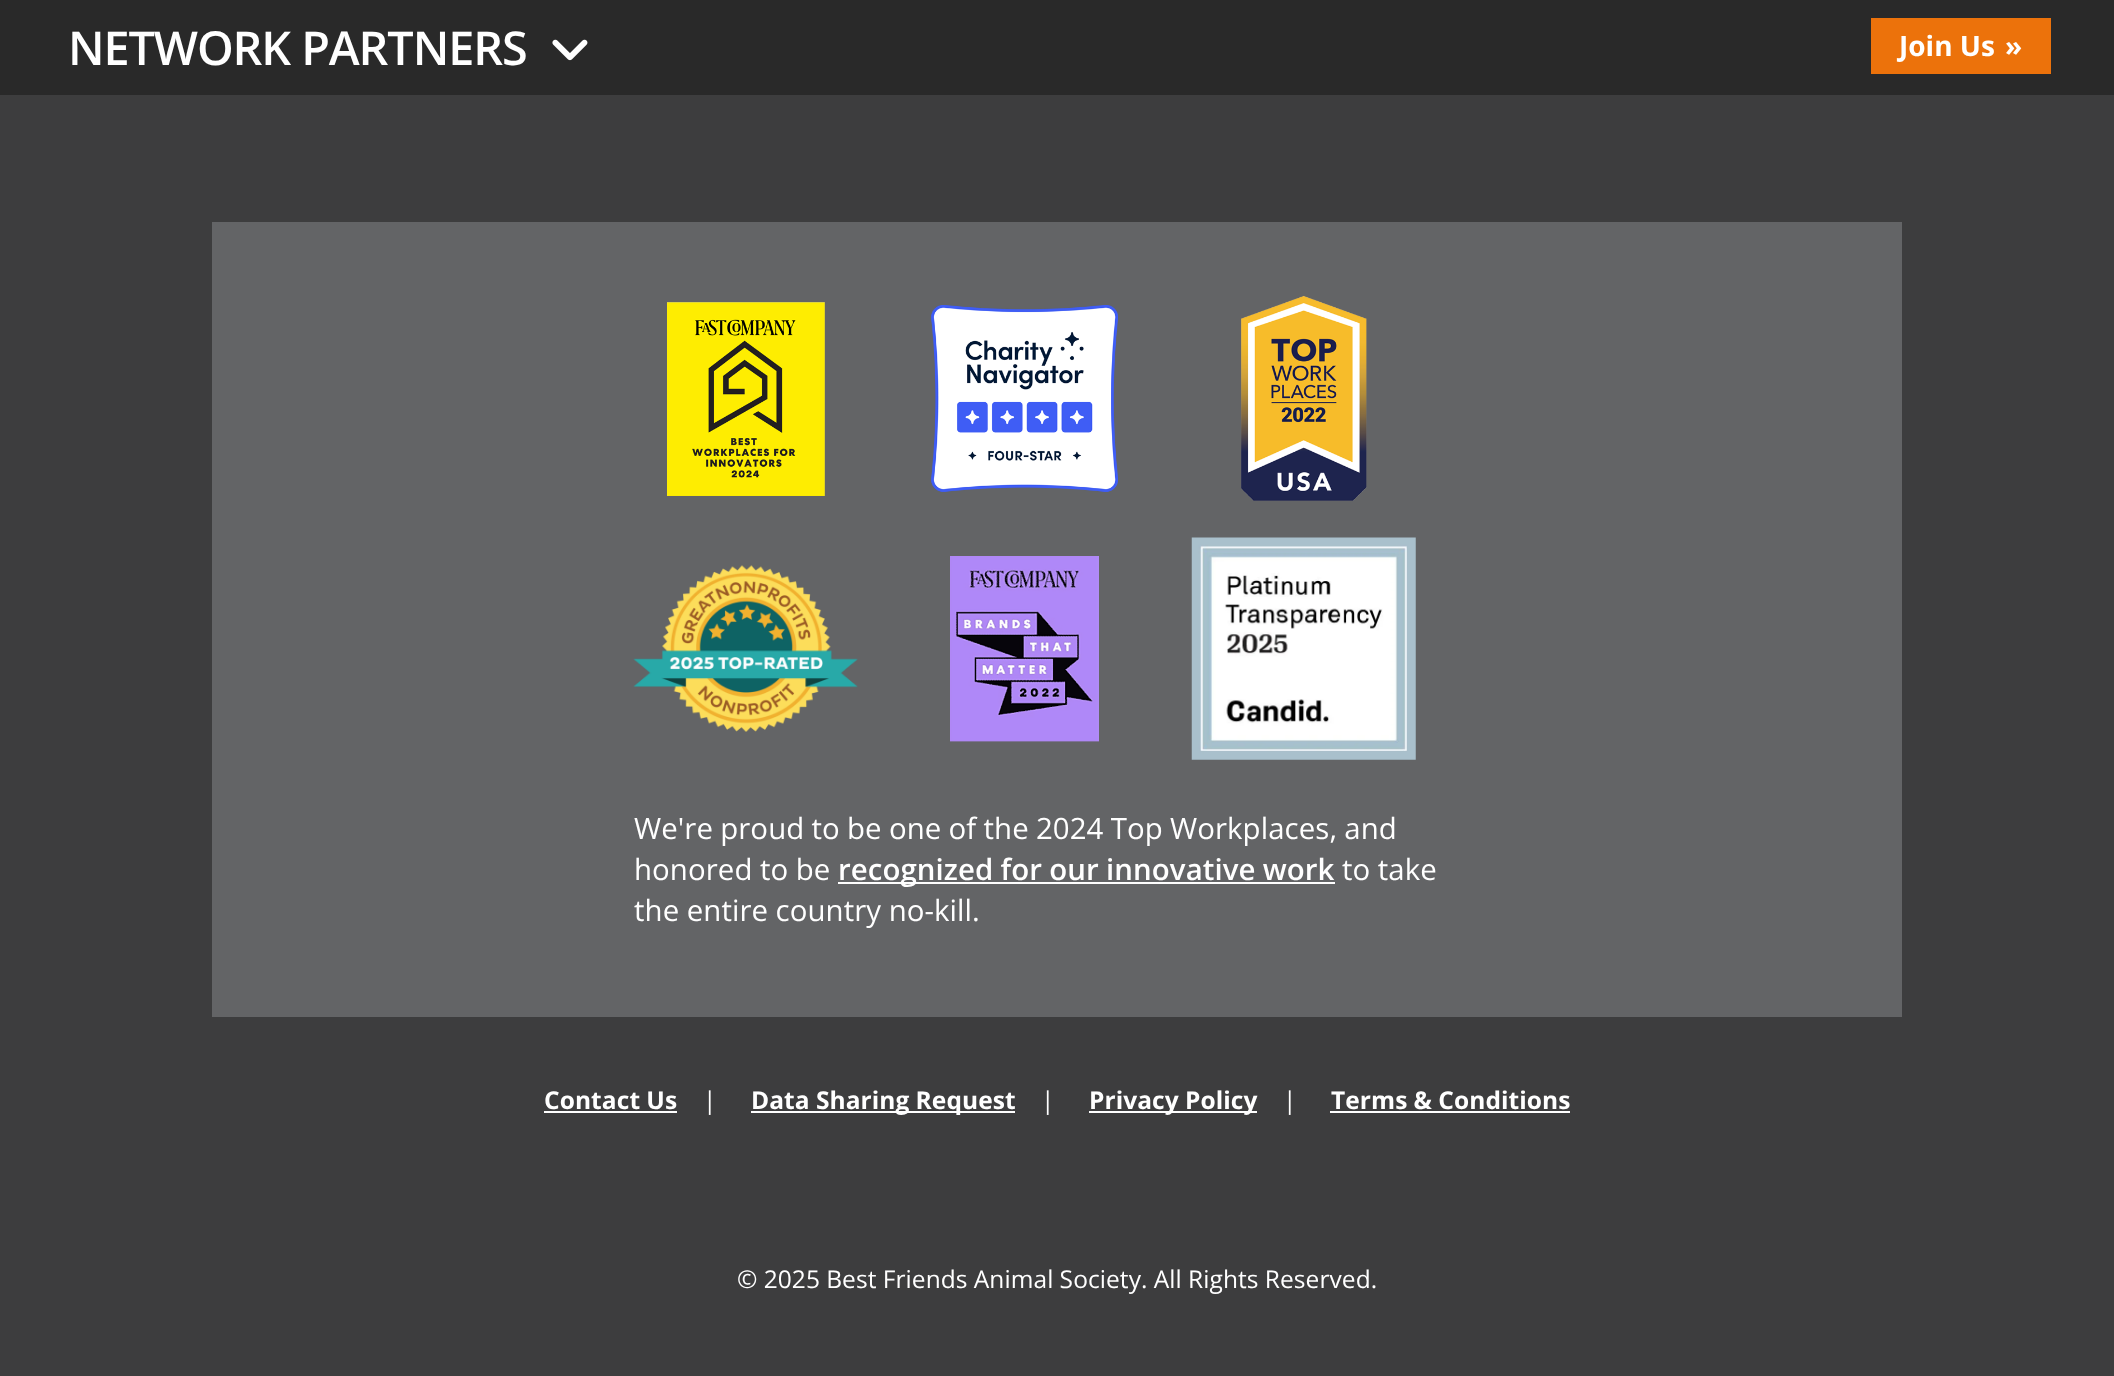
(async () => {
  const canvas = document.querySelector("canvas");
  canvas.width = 2114;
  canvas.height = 1376;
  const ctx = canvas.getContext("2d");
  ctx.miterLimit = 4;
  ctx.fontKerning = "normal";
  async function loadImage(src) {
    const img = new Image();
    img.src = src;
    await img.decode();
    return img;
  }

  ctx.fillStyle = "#3d3d3e";
  ctx.fillRect(0, 0, 2114, 1376);
  ctx.fillStyle = "#292929";
  ctx.fillRect(0, 0, 2114, 95);
  ctx.drawImage(await loadImage("img/1.png"), 552, 39, 36, 22);
  ctx.fillStyle = "#ec720b";
  ctx.fillRect(1871, 18, 180, 56);
  ctx.fillStyle = "#636466";
  ctx.fillRect(212, 222, 1690, 795);
  ctx.drawImage(await loadImage("img/2.png"), 667, 302, 158, 194);
  ctx.drawImage(await loadImage("img/3.png"), 931, 305, 187, 187);
  ctx.drawImage(await loadImage("img/4.png"), 1241, 296, 126, 205);
  ctx.drawImage(await loadImage("img/5.png"), 633, 565, 225, 167);
  ctx.drawImage(await loadImage("img/6.png"), 950, 556, 149, 186);
  ctx.drawImage(await loadImage("img/7.png"), 1191, 537, 225, 223);
  for (const [x, y, w, h, color] of [
    [838, 882, 497, 2, "#ffffff"],
    [544, 1111, 133, 2, "#ffffff"],
    [751, 1111, 264, 2, "#ffffff"],
    [1089, 1111, 168, 2, "#ffffff"],
    [1330, 1111, 240, 2, "#ffffff"],
  ]) {
    ctx.fillStyle = color;
    ctx.fillRect(x, y, w, h);
  }
  ctx.letterSpacing = "-1.1px";
  ctx.font = "600 46.75px Open Sans";
  ctx.fillText("NETWORK PARTNERS", 68, 65);
  ctx.letterSpacing = "0px";
  ctx.font = "bold 28px Open Sans";
  ctx.fillText("Join Us", 1899, 56);
  ctx.fillText("»", 2005, 56);
  ctx.letterSpacing = "0.08px";
  ctx.wordSpacing = "-0.5px";
  ctx.font = "29.4px Open Sans";
  ctx.fillText("We're proud to be one of the 2024 Top Workplaces, and", 634, 839);
  ctx.wordSpacing = "-0.25px";
  ctx.fillText("honored to be", 634, 880);
  ctx.wordSpacing = "-0.5px";
  ctx.font = "600 29.4px Open Sans";
  ctx.fillText("recognized for our innovative work", 838, 880);
  ctx.wordSpacing = "-0.25px";
  ctx.font = "29.4px Open Sans";
  ctx.fillText("to take", 1342, 880);
  ctx.fillText("the entire country no-kill.", 634, 921);
  ctx.font = "bold 24.5px Open Sans";
  ctx.fillText("Contact Us", 544, 1109);
  ctx.wordSpacing = "0px";
  ctx.font = "24.5px Open Sans";
  ctx.fillText("|", 703, 1109);
  ctx.wordSpacing = "-0.25px";
  ctx.font = "bold 24.5px Open Sans";
  ctx.fillText("Data Sharing Request", 751, 1109);
  ctx.wordSpacing = "0px";
  ctx.font = "24.5px Open Sans";
  ctx.fillText("|", 1041, 1109);
  ctx.wordSpacing = "-0.25px";
  ctx.font = "bold 24.5px Open Sans";
  ctx.fillText("Privacy Policy", 1089, 1109);
  ctx.wordSpacing = "0px";
  ctx.font = "24.5px Open Sans";
  ctx.fillText("|", 1283, 1109);
  ctx.wordSpacing = "-0.25px";
  ctx.font = "bold 24.5px Open Sans";
  ctx.fillText("Terms & Conditions", 1331, 1109);
  ctx.font = "24.5px Open Sans";
  ctx.fillText("© 2025 Best Friends Animal Society. All Rights Reserved.", 737, 1288);
})();
